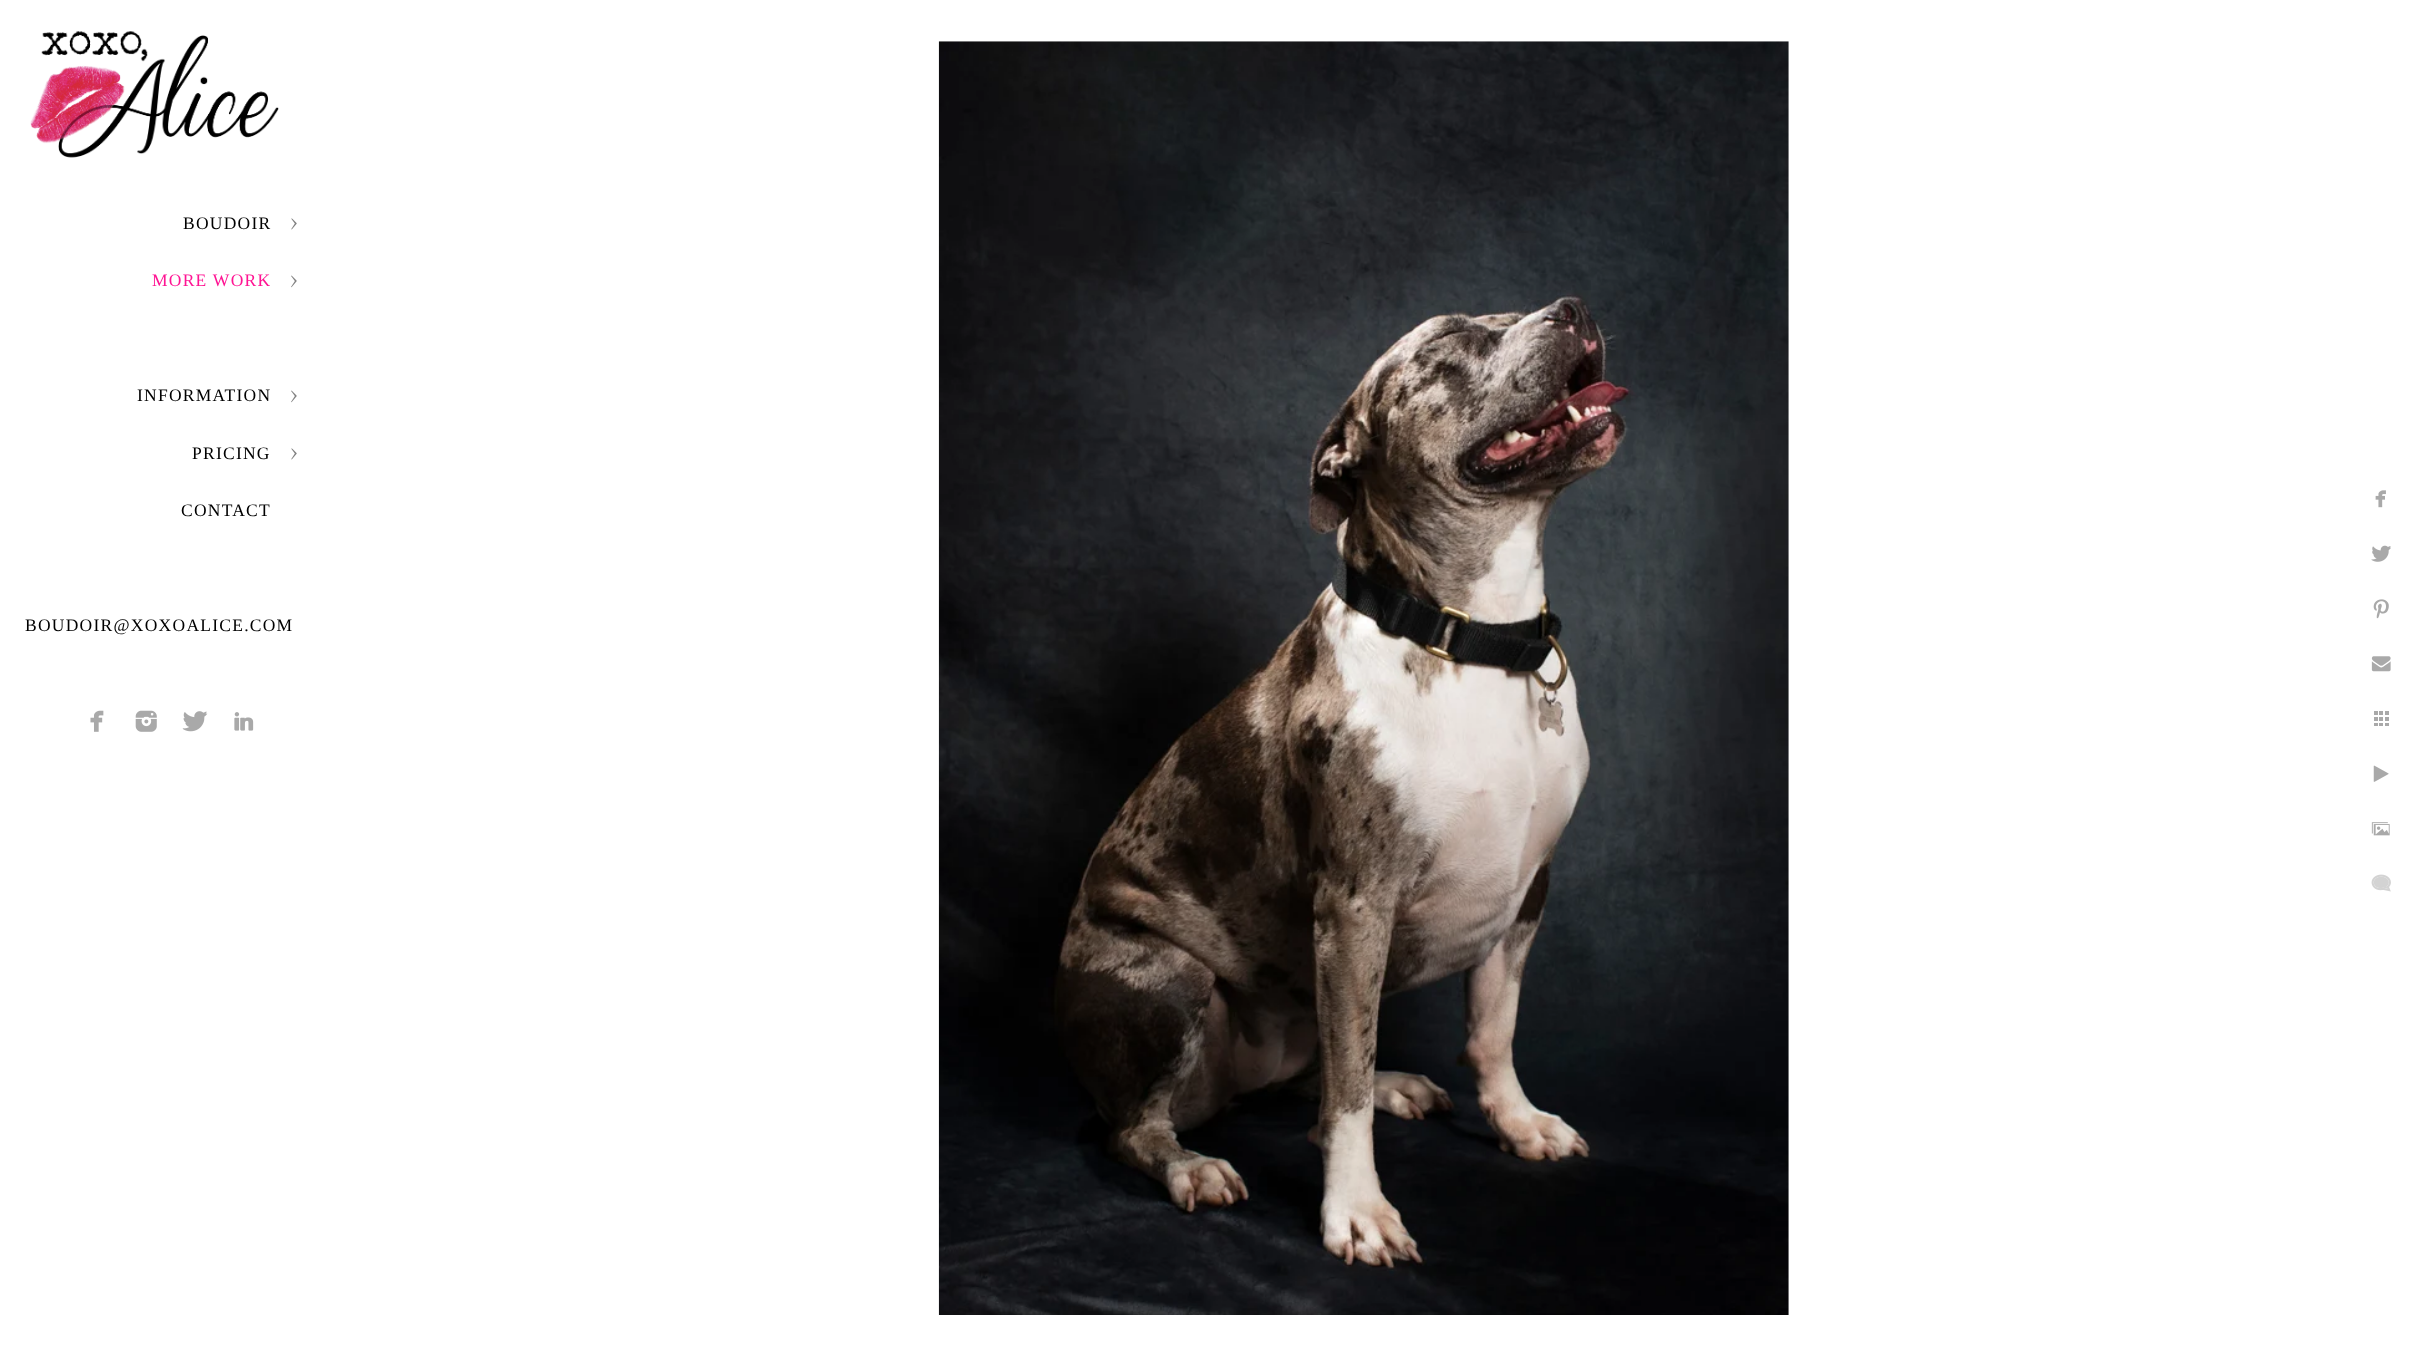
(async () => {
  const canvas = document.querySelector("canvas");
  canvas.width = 2414;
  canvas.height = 1356;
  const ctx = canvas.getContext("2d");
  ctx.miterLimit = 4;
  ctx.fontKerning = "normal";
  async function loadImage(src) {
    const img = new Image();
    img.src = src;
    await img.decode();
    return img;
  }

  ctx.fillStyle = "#ffffff";
  ctx.fillRect(0, 0, 2414, 1356);
  ctx.drawImage(await loadImage("img/1.png"), 30, 31, 249, 127);
  ctx.drawImage(await loadImage("img/2.png"), 291, 218, 6, 12);
  ctx.drawImage(await loadImage("img/3.png"), 291, 275, 6, 13);
  ctx.drawImage(await loadImage("img/3.png"), 291, 390, 6, 13);
  ctx.drawImage(await loadImage("img/2.png"), 291, 448, 6, 12);
  ctx.drawImage(await loadImage("img/4.png"), 90, 710, 14, 22);
  ctx.drawImage(await loadImage("img/5.png"), 135, 710, 22, 22);
  ctx.drawImage(await loadImage("img/6.png"), 182, 711, 26, 21);
  ctx.drawImage(await loadImage("img/7.png"), 234, 712, 20, 19);
  ctx.drawImage(await loadImage("img/8.png"), 938, 41, 851, 1274);
  ctx.drawImage(await loadImage("img/9.png"), 2375, 490, 11, 18);
  ctx.drawImage(await loadImage("img/10.png"), 2371, 545, 20, 17);
  ctx.drawImage(await loadImage("img/11.png"), 2373, 599, 16, 20);
  ctx.drawImage(await loadImage("img/12.png"), 2371, 656, 20, 16);
  ctx.drawImage(await loadImage("img/13.png"), 2374, 711, 15, 15);
  ctx.drawImage(await loadImage("img/14.png"), 2373, 765, 16, 17);
  ctx.drawImage(await loadImage("img/15.png"), 2371, 822, 19, 14);
  ctx.drawImage(await loadImage("img/16.png"), 2371, 874, 20, 18);
  ctx.letterSpacing = "1.25px";
  ctx.font = "17.5px Liberation Serif";
  ctx.fillStyle = "#000000";
  ctx.fillText("BOUDOIR", 183, 229);
  ctx.fillStyle = "#ff1493";
  ctx.fillText("MORE WORK", 152, 286);
  ctx.fillStyle = "#000000";
  for (const [text, x, y] of [
    ["INFORMATION", 137, 401],
    ["PRICING", 192, 459],
    ["CONTACT", 181, 516],
    ["BOUDOIR@XOXOALICE.COM", 25, 631],
  ]) {
    ctx.fillText(text, x, y);
  }
})();
